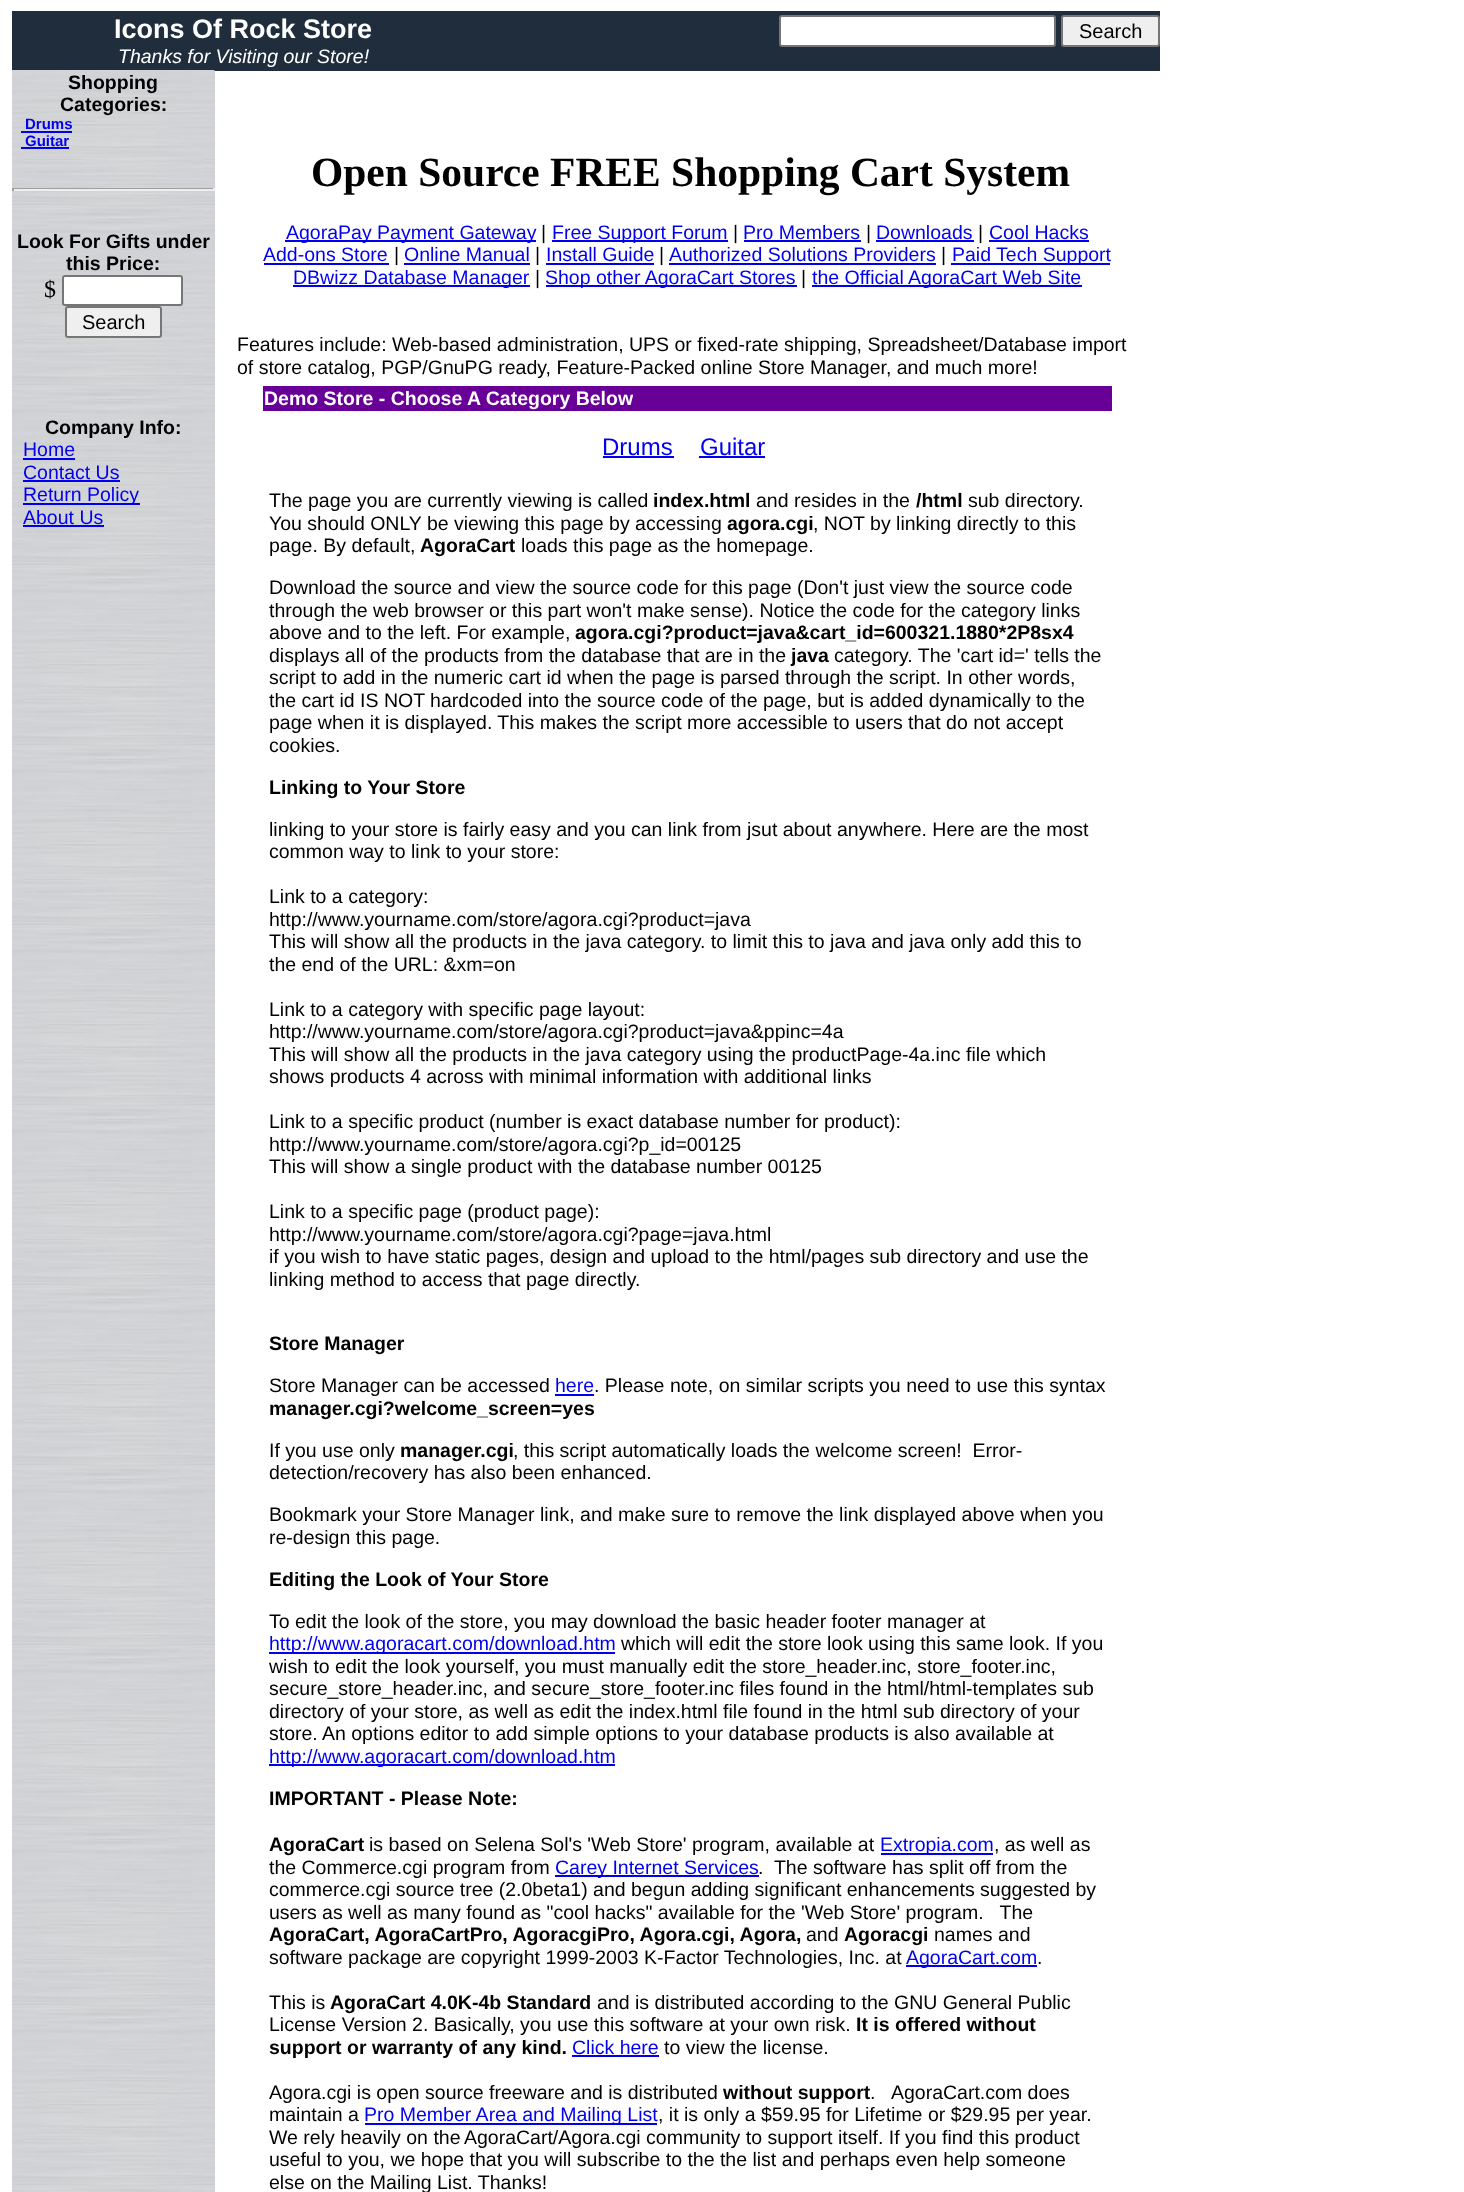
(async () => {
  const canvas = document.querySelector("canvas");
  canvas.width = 1464;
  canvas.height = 2192;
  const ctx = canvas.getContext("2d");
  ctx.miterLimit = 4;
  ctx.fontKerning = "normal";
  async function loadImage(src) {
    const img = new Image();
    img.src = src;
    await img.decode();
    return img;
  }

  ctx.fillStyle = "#ffffff";
  ctx.fillRect(0, 0, 1464, 2192);
  ctx.fillStyle = "#1f2d3d";
  ctx.fillRect(12, 11, 1148, 60);
  ctx.fillStyle = "#ffffff";
  ctx.beginPath();
  ctx.roundRect(780, 16, 275, 30, 2);
  ctx.fill();
  ctx.strokeStyle = "#767676";
  ctx.lineWidth = 2;
  ctx.stroke();
  ctx.fillStyle = "#efefef";
  ctx.beginPath();
  ctx.roundRect(1062, 16, 97, 30, 2);
  ctx.fill();
  ctx.stroke();
  ctx.fillStyle = "#cccccc";
  ctx.fillRect(214, 71, 1, 2121);
  ctx.drawImage(await loadImage("img/1.png"), 12, 70, 203, 2122);
  for (const [x, y, w, h, color] of [
    [21, 131, 51, 2, "#0000ee"],
    [21, 147, 48, 2, "#0000ee"],
    [12, 188, 203, 1, "#9f9f9f"],
    [213, 188, 2, 3, "#eeeeee"],
    [12, 189, 203, 2, "#eeeeee"],
    [12, 188, 2, 3, "#9f9f9f"],
  ]) {
    ctx.fillStyle = color;
    ctx.fillRect(x, y, w, h);
  }
  ctx.fillStyle = "#ffffff";
  ctx.beginPath();
  ctx.roundRect(63, 276, 119, 29, 2);
  ctx.fill();
  ctx.stroke();
  ctx.fillStyle = "#efefef";
  ctx.beginPath();
  ctx.roundRect(66, 307, 95, 30, 2);
  ctx.fill();
  ctx.stroke();
  for (const [x, y, w, h, color] of [
    [23, 458, 52, 2, "#0000ee"],
    [23, 480, 97, 2, "#0000ee"],
    [23, 503, 117, 2, "#0000ee"],
    [23, 525, 81, 2, "#0000ee"],
    [285, 240, 251, 2, "#0000ee"],
    [552, 240, 176, 2, "#0000ee"],
    [744, 240, 117, 2, "#0000ee"],
    [876, 240, 98, 2, "#0000ee"],
    [989, 240, 100, 2, "#0000ee"],
    [264, 263, 125, 2, "#0000ee"],
    [404, 263, 126, 2, "#0000ee"],
    [546, 263, 108, 2, "#0000ee"],
    [669, 263, 267, 2, "#0000ee"],
    [951, 263, 159, 2, "#0000ee"],
    [293, 285, 237, 2, "#0000ee"],
    [546, 285, 251, 2, "#0000ee"],
    [812, 285, 270, 2, "#0000ee"],
    [263, 386, 849, 25, "#680098"],
    [603, 456, 71, 2, "#0000ee"],
    [699, 456, 66, 2, "#0000ee"],
    [555, 1394, 39, 2, "#0000ee"],
    [269, 1652, 346, 2, "#0000ee"],
    [269, 1764, 346, 2, "#0000ee"],
    [881, 1853, 112, 2, "#0000ee"],
    [555, 1875, 204, 2, "#0000ee"],
    [906, 1965, 131, 2, "#0000ee"],
    [572, 2055, 87, 2, "#0000ee"],
    [365, 2123, 292, 2, "#0000ee"],
  ]) {
    ctx.fillStyle = color;
    ctx.fillRect(x, y, w, h);
  }
  ctx.font = "bold 27px Liberation Sans";
  ctx.fillStyle = "#ffffff";
  ctx.fillText("Icons Of Rock Store", 114, 38);
  ctx.font = "italic 19.5px Liberation Sans";
  ctx.fillText("Thanks for Visiting our Store!", 118, 63);
  ctx.font = "20px Liberation Sans";
  ctx.fillStyle = "#000000";
  ctx.fillText("Search", 1079, 38);
  ctx.font = "bold 19.5px Liberation Sans";
  ctx.fillText("Shopping", 68, 89);
  ctx.fillText("Categories:", 60, 111);
  ctx.font = "bold 15px Liberation Sans";
  ctx.fillStyle = "#0000ee";
  ctx.fillText("Drums", 25, 129);
  ctx.fillText("Guitar", 25, 146);
  ctx.font = "bold 19.5px Liberation Sans";
  ctx.fillStyle = "#000000";
  ctx.fillText("Look For Gifts under", 17, 248);
  ctx.fillText("this Price:", 66, 270);
  ctx.font = "24px Liberation Serif";
  ctx.fillText("$", 44, 297);
  ctx.font = "20px Liberation Sans";
  ctx.fillText("Search", 82, 329);
  ctx.font = "bold 19.5px Liberation Sans";
  ctx.fillText("Company Info:", 45, 434);
  ctx.font = "19.5px Liberation Sans";
  ctx.fillStyle = "#0000ee";
  for (const [text, x, y] of [
    ["Home", 23, 456],
    ["Contact Us", 23, 479],
    ["Return Policy", 23, 501],
    ["About Us", 23, 524],
  ]) {
    ctx.fillText(text, x, y);
  }
  ctx.font = "bold 41.5px Liberation Serif";
  ctx.fillStyle = "#000000";
  ctx.fillText("Open Source FREE Shopping Cart System", 311, 186);
  ctx.font = "19.5px Liberation Sans";
  ctx.fillStyle = "#0000ee";
  ctx.fillText("AgoraPay Payment Gateway", 286, 239);
  ctx.fillStyle = "#000000";
  ctx.fillText("|", 541, 239);
  ctx.fillStyle = "#0000ee";
  ctx.fillText("Free Support Forum", 552, 239);
  ctx.fillStyle = "#000000";
  ctx.fillText("|", 733, 239);
  ctx.fillStyle = "#0000ee";
  ctx.fillText("Pro Members", 743, 239);
  ctx.fillStyle = "#000000";
  ctx.fillText("|", 866, 239);
  ctx.fillStyle = "#0000ee";
  ctx.fillText("Downloads", 876, 239);
  ctx.fillStyle = "#000000";
  ctx.fillText("|", 978, 239);
  ctx.fillStyle = "#0000ee";
  ctx.fillText("Cool Hacks", 989, 239);
  ctx.fillText("Add-ons Store", 263, 261);
  ctx.fillStyle = "#000000";
  ctx.fillText("|", 394, 261);
  ctx.fillStyle = "#0000ee";
  ctx.fillText("Online Manual", 404, 261);
  ctx.fillStyle = "#000000";
  ctx.fillText("|", 535, 261);
  ctx.fillStyle = "#0000ee";
  ctx.fillText("Install Guide", 546, 261);
  ctx.fillStyle = "#000000";
  ctx.fillText("|", 659, 261);
  ctx.fillStyle = "#0000ee";
  ctx.fillText("Authorized Solutions Providers", 669, 261);
  ctx.fillStyle = "#000000";
  ctx.fillText("|", 941, 261);
  ctx.fillStyle = "#0000ee";
  ctx.fillText("Paid Tech Support", 952, 261);
  ctx.fillText("DBwizz Database Manager", 293, 284);
  ctx.fillStyle = "#000000";
  ctx.fillText("|", 535, 284);
  ctx.fillStyle = "#0000ee";
  ctx.fillText("Shop other AgoraCart Stores", 545, 284);
  ctx.fillStyle = "#000000";
  ctx.fillText("|", 801, 284);
  ctx.fillStyle = "#0000ee";
  ctx.fillText("the Official AgoraCart Web Site", 812, 284);
  ctx.fillStyle = "#000000";
  ctx.fillText("Features include: Web-based administration, UPS or fixed-rate shipping, Spreadsheet/Database import", 237, 351);
  ctx.fillText("of store catalog, PGP/GnuPG ready, Feature-Packed online Store Manager, and much more!", 237, 374);
  ctx.font = "bold 19.5px Liberation Sans";
  ctx.fillStyle = "#ffffff";
  ctx.fillText("Demo Store - Choose A Category Below", 264, 405);
  ctx.font = "24px Liberation Sans";
  ctx.fillStyle = "#0000ee";
  ctx.fillText("Drums", 602, 455);
  ctx.fillText("Guitar", 700, 455);
  ctx.font = "19.5px Liberation Sans";
  ctx.fillStyle = "#000000";
  ctx.fillText("The page you are currently viewing is called", 269, 507);
  ctx.font = "bold 19.5px Liberation Sans";
  ctx.fillText("index.html", 653, 507);
  ctx.font = "19.5px Liberation Sans";
  ctx.fillText("and resides in the", 756, 507);
  ctx.font = "bold 19.5px Liberation Sans";
  ctx.fillText("/html", 916, 507);
  ctx.font = "19.5px Liberation Sans";
  ctx.fillText("sub directory.", 968, 507);
  ctx.fillText("You should ONLY be viewing this page by accessing", 269, 530);
  ctx.font = "bold 19.5px Liberation Sans";
  ctx.fillText("agora.cgi", 727, 530);
  ctx.font = "19.5px Liberation Sans";
  ctx.fillText(", NOT by linking directly to this", 813, 530);
  ctx.fillText("page. By default,", 269, 552);
  ctx.font = "bold 19.5px Liberation Sans";
  ctx.fillText("AgoraCart", 420, 552);
  ctx.font = "19.5px Liberation Sans";
  for (const [text, x, y] of [
    ["loads this page as the homepage.", 521, 552],
    ["Download the source and view the source code for this page (Don't just view the source code", 269, 594],
    ["through the web browser or this part won't make sense). Notice the code for the category links", 269, 617],
    ["above and to the left. For example,", 269, 639],
  ]) {
    ctx.fillText(text, x, y);
  }
  ctx.font = "bold 19.5px Liberation Sans";
  ctx.fillText("agora.cgi?product=java&cart_id=600321.1880*2P8sx4", 575, 639);
  ctx.font = "19.5px Liberation Sans";
  ctx.fillText("displays all of the products from the database that are in the", 269, 662);
  ctx.font = "bold 19.5px Liberation Sans";
  ctx.fillText("java", 791, 662);
  ctx.font = "19.5px Liberation Sans";
  for (const [text, x, y] of [
    ["category. The 'cart id=' tells the", 834, 662],
    ["script to add in the numeric cart id when the page is parsed through the script. In other words,", 269, 684],
    ["the cart id IS NOT hardcoded into the source code of the page, but is added dynamically to the", 269, 707],
    ["page when it is displayed. This makes the script more accessible to users that do not accept", 269, 729],
    ["cookies.", 269, 752],
  ]) {
    ctx.fillText(text, x, y);
  }
  ctx.font = "bold 19.5px Liberation Sans";
  ctx.fillText("Linking to Your Store", 269, 794);
  ctx.font = "19.5px Liberation Sans";
  for (const [text, x, y] of [
    ["linking to your store is fairly easy and you can link from jsut about anywhere. Here are the most", 269, 836],
    ["common way to link to your store:", 269, 858],
    ["Link to a category:", 269, 903],
    ["http://www.yourname.com/store/agora.cgi?product=java", 269, 926],
    ["This will show all the products in the java category. to limit this to java and java only add this to", 269, 948],
    ["the end of the URL: &xm=on", 269, 971],
    ["Link to a category with specific page layout:", 269, 1016],
    ["http://www.yourname.com/store/agora.cgi?product=java&ppinc=4a", 269, 1038],
    ["This will show all the products in the java category using the productPage-4a.inc file which", 269, 1061],
    ["shows products 4 across with minimal information with additional links", 269, 1083],
    ["Link to a specific product (number is exact database number for product):", 269, 1128],
    ["http://www.yourname.com/store/agora.cgi?p_id=00125", 269, 1151],
    ["This will show a single product with the database number 00125", 269, 1173],
    ["Link to a specific page (product page):", 269, 1218],
    ["http://www.yourname.com/store/agora.cgi?page=java.html", 269, 1241],
    ["if you wish to have static pages, design and upload to the html/pages sub directory and use the", 269, 1263],
    ["linking method to access that page directly.", 269, 1286],
  ]) {
    ctx.fillText(text, x, y);
  }
  ctx.font = "bold 19.5px Liberation Sans";
  ctx.fillText("Store Manager", 269, 1350);
  ctx.font = "19.5px Liberation Sans";
  ctx.fillText("Store Manager can be accessed", 269, 1392);
  ctx.fillStyle = "#0000ee";
  ctx.fillText("here", 555, 1392);
  ctx.fillStyle = "#000000";
  ctx.fillText(". Please note, on similar scripts you need to use this syntax", 594, 1392);
  ctx.font = "bold 19.5px Liberation Sans";
  ctx.fillText("manager.cgi?welcome_screen=yes", 269, 1415);
  ctx.font = "19.5px Liberation Sans";
  ctx.fillText("If you use only", 269, 1457);
  ctx.font = "bold 19.5px Liberation Sans";
  ctx.fillText("manager.cgi", 400, 1457);
  ctx.font = "19.5px Liberation Sans";
  for (const [text, x, y] of [
    [", this script automatically loads the welcome screen!  Error-", 513, 1457],
    ["detection/recovery has also been enhanced.", 269, 1479],
    ["Bookmark your Store Manager link, and make sure to remove the link displayed above when you", 269, 1521],
    ["re-design this page.", 269, 1544],
  ]) {
    ctx.fillText(text, x, y);
  }
  ctx.font = "bold 19.5px Liberation Sans";
  ctx.fillText("Editing the Look of Your Store", 269, 1586);
  ctx.font = "19.5px Liberation Sans";
  ctx.fillText("To edit the look of the store, you may download the basic header footer manager at", 269, 1628);
  ctx.fillStyle = "#0000ee";
  ctx.fillText("http://www.agoracart.com/download.htm", 269, 1650);
  ctx.fillStyle = "#000000";
  for (const [text, x, y] of [
    ["which will edit the store look using this same look. If you", 621, 1650],
    ["wish to edit the look yourself, you must manually edit the store_header.inc, store_footer.inc,", 269, 1673],
    ["secure_store_header.inc, and secure_store_footer.inc files found in the html/html-templates sub", 269, 1695],
    ["directory of your store, as well as edit the index.html file found in the html sub directory of your", 269, 1718],
    ["store.", 269, 1740],
    ["An options editor to add simple options to your database products is also available at", 322, 1740],
  ]) {
    ctx.fillText(text, x, y);
  }
  ctx.fillStyle = "#0000ee";
  ctx.fillText("http://www.agoracart.com/download.htm", 269, 1763);
  ctx.font = "bold 19.5px Liberation Sans";
  ctx.fillStyle = "#000000";
  ctx.fillText("IMPORTANT - Please Note:", 269, 1805);
  ctx.fillText("AgoraCart", 269, 1851);
  ctx.font = "19.5px Liberation Sans";
  ctx.fillText("is based on Selena Sol's 'Web Store' program, available at", 369, 1851);
  ctx.fillStyle = "#0000ee";
  ctx.fillText("Extropia.com", 880, 1851);
  ctx.fillStyle = "#000000";
  ctx.fillText(", as well as", 994, 1851);
  ctx.fillText("the Commerce.cgi program from", 269, 1874);
  ctx.fillStyle = "#0000ee";
  ctx.fillText("Carey Internet Services", 555, 1874);
  ctx.fillStyle = "#000000";
  for (const [text, x, y] of [
    [".  The software has split off from the", 758, 1874],
    ["commerce.cgi source tree (2.0beta1) and begun adding significant enhancements suggested by", 269, 1896],
    ["users as well as many found as \"cool hacks\" available for the 'Web Store' program.   The", 269, 1919],
  ]) {
    ctx.fillText(text, x, y);
  }
  ctx.font = "bold 19.5px Liberation Sans";
  ctx.fillText("AgoraCart, AgoraCartPro, AgoracgiPro, Agora.cgi, Agora,", 269, 1941);
  ctx.font = "19.5px Liberation Sans";
  ctx.fillText("and", 806, 1941);
  ctx.font = "bold 19.5px Liberation Sans";
  ctx.fillText("Agoracgi", 844, 1941);
  ctx.font = "19.5px Liberation Sans";
  for (const [text, x, y] of [
    ["names and", 934, 1941],
    ["software package are copyright 1999-2003", 269, 1964],
    ["K-Factor Technologies, Inc. at", 644, 1964],
  ]) {
    ctx.fillText(text, x, y);
  }
  ctx.fillStyle = "#0000ee";
  ctx.fillText("AgoraCart.com", 906, 1964);
  ctx.fillStyle = "#000000";
  ctx.fillText(".", 1037, 1964);
  ctx.fillText("This is", 269, 2009);
  ctx.font = "bold 19.5px Liberation Sans";
  ctx.fillText("AgoraCart 4.0K-4b Standard", 330, 2009);
  ctx.font = "19.5px Liberation Sans";
  ctx.fillText("and is distributed according to the GNU General Public", 597, 2009);
  ctx.fillText("License Version 2. Basically, you use this software at your own risk.", 269, 2031);
  ctx.font = "bold 19.5px Liberation Sans";
  ctx.fillText("It is offered without", 856, 2031);
  ctx.fillText("support or warranty of any kind.", 269, 2054);
  ctx.font = "19.5px Liberation Sans";
  ctx.fillStyle = "#0000ee";
  ctx.fillText("Click here", 572, 2054);
  ctx.fillStyle = "#000000";
  ctx.fillText("to view the license.", 664, 2054);
  ctx.fillText("Agora.cgi is open source freeware and is distributed", 269, 2099);
  ctx.font = "bold 19.5px Liberation Sans";
  ctx.fillText("without support", 723, 2099);
  ctx.font = "19.5px Liberation Sans";
  for (const [text, x, y] of [
    [".", 870, 2099],
    ["AgoraCart.com does", 891, 2099],
    ["maintain a", 269, 2121],
  ]) {
    ctx.fillText(text, x, y);
  }
  ctx.fillStyle = "#0000ee";
  ctx.fillText("Pro Member Area and Mailing List", 364, 2121);
  ctx.fillStyle = "#000000";
  for (const [text, x, y] of [
    [", it is only a $59.95 for Lifetime or $29.95 per year.", 658, 2121],
    ["We rely heavily on the", 269, 2144],
    ["AgoraCart/Agora.cgi community to support itself. If you find this product", 464, 2144],
    ["useful to you, we hope that you will subscribe to the the list and perhaps even help someone", 269, 2166],
    ["else on the Mailing List. Thanks!", 269, 2189],
  ]) {
    ctx.fillText(text, x, y);
  }
})();
